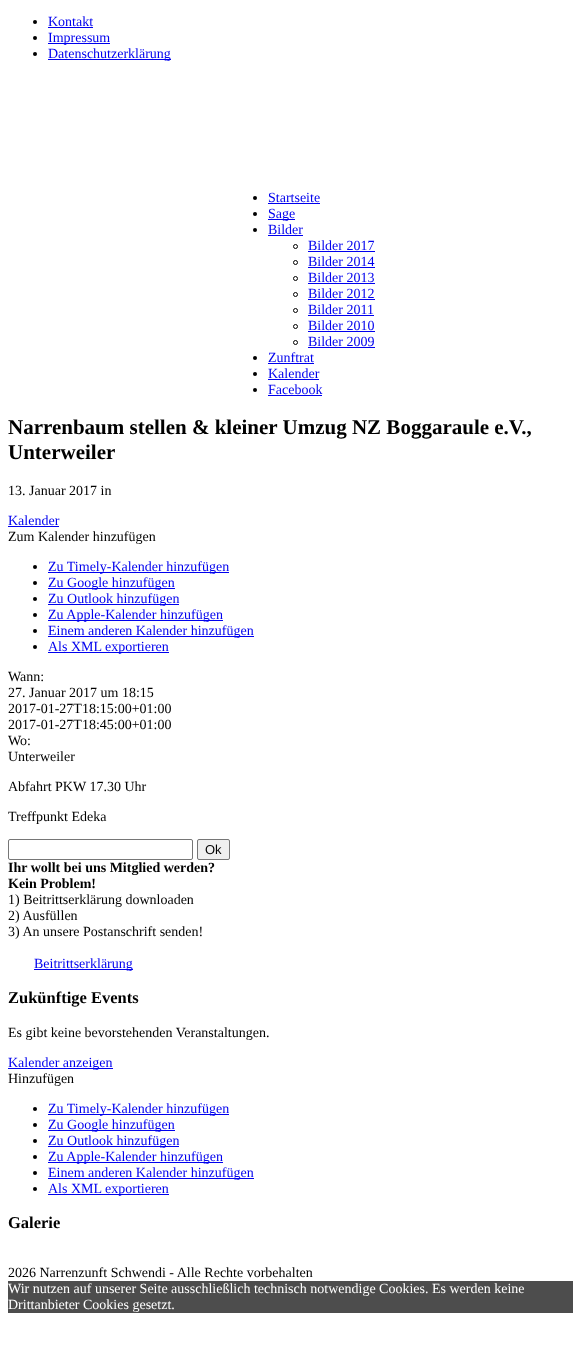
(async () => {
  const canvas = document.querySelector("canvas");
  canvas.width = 581;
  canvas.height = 1359;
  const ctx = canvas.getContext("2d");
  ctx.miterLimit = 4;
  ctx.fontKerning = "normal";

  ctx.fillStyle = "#ffffff";
  ctx.fillRect(0, 0, 581, 1359);
  ctx.fillStyle = "#000000";
  ctx.beginPath();
  ctx.arc(35, 22, 2, 0, Math.PI * 2);
  ctx.fill();
  ctx.fillStyle = "#0000ee";
  ctx.fillRect(48, 27, 45, 1);
  ctx.fillStyle = "#000000";
  ctx.beginPath();
  ctx.arc(35, 38, 2, 0, Math.PI * 2);
  ctx.fill();
  ctx.fillStyle = "#0000ee";
  ctx.fillRect(48, 43, 62, 1);
  ctx.fillStyle = "#000000";
  ctx.beginPath();
  ctx.arc(35, 54, 2, 0, Math.PI * 2);
  ctx.fill();
  ctx.fillStyle = "#0000ee";
  ctx.fillRect(48, 59, 123, 1);
  ctx.fillStyle = "#000000";
  ctx.beginPath();
  ctx.arc(255, 198, 2, 0, Math.PI * 2);
  ctx.fill();
  ctx.fillStyle = "#0000ee";
  ctx.fillRect(268, 203, 52, 1);
  ctx.fillStyle = "#000000";
  ctx.beginPath();
  ctx.arc(255, 214, 2, 0, Math.PI * 2);
  ctx.fill();
  ctx.fillStyle = "#0000ee";
  ctx.fillRect(268, 219, 27, 1);
  ctx.fillStyle = "#000000";
  ctx.beginPath();
  ctx.arc(255, 230, 2, 0, Math.PI * 2);
  ctx.fill();
  ctx.fillStyle = "#0000ee";
  ctx.fillRect(268, 235, 35, 1);
  ctx.beginPath();
  ctx.arc(295.5, 246.5, 2, 0, Math.PI * 2);
  ctx.strokeStyle = "#000000";
  ctx.stroke();
  ctx.fillRect(308, 251, 67, 1);
  ctx.beginPath();
  ctx.arc(295.5, 262.5, 2, 0, Math.PI * 2);
  ctx.stroke();
  ctx.fillRect(308, 267, 67, 1);
  ctx.beginPath();
  ctx.arc(295.5, 278.5, 2, 0, Math.PI * 2);
  ctx.stroke();
  ctx.fillRect(308, 283, 67, 1);
  ctx.beginPath();
  ctx.arc(295.5, 294.5, 2, 0, Math.PI * 2);
  ctx.stroke();
  ctx.fillRect(308, 299, 67, 1);
  ctx.beginPath();
  ctx.arc(295.5, 310.5, 2, 0, Math.PI * 2);
  ctx.stroke();
  ctx.fillRect(308, 315, 66, 1);
  ctx.beginPath();
  ctx.arc(295.5, 326.5, 2, 0, Math.PI * 2);
  ctx.stroke();
  ctx.fillRect(308, 331, 67, 1);
  ctx.beginPath();
  ctx.arc(295.5, 342.5, 2, 0, Math.PI * 2);
  ctx.stroke();
  ctx.fillRect(308, 347, 67, 1);
  ctx.fillStyle = "#000000";
  ctx.beginPath();
  ctx.arc(255, 358, 2, 0, Math.PI * 2);
  ctx.fill();
  ctx.fillStyle = "#0000ee";
  ctx.fillRect(268, 363, 46, 1);
  ctx.fillStyle = "#000000";
  ctx.beginPath();
  ctx.arc(255, 374, 2, 0, Math.PI * 2);
  ctx.fill();
  ctx.fillStyle = "#0000ee";
  ctx.fillRect(268, 379, 51, 1);
  ctx.fillStyle = "#000000";
  ctx.beginPath();
  ctx.arc(255, 390, 2, 0, Math.PI * 2);
  ctx.fill();
  ctx.fillStyle = "#0000ee";
  ctx.fillRect(268, 395, 54, 1);
  ctx.fillRect(8, 526, 51, 1);
  ctx.fillStyle = "#000000";
  ctx.beginPath();
  ctx.arc(35, 567, 2, 0, Math.PI * 2);
  ctx.fill();
  ctx.fillStyle = "#0000ee";
  ctx.fillRect(48, 572, 181, 1);
  ctx.fillStyle = "#000000";
  ctx.beginPath();
  ctx.arc(35, 583, 2, 0, Math.PI * 2);
  ctx.fill();
  ctx.fillStyle = "#0000ee";
  ctx.fillRect(48, 588, 127, 1);
  ctx.fillStyle = "#000000";
  ctx.beginPath();
  ctx.arc(35, 599, 2, 0, Math.PI * 2);
  ctx.fill();
  ctx.fillStyle = "#0000ee";
  ctx.fillRect(48, 604, 131, 1);
  ctx.fillStyle = "#000000";
  ctx.beginPath();
  ctx.arc(35, 615, 2, 0, Math.PI * 2);
  ctx.fill();
  ctx.fillStyle = "#0000ee";
  ctx.fillRect(48, 620, 175, 1);
  ctx.fillStyle = "#000000";
  ctx.beginPath();
  ctx.arc(35, 631, 2, 0, Math.PI * 2);
  ctx.fill();
  ctx.fillStyle = "#0000ee";
  ctx.fillRect(48, 636, 206, 1);
  ctx.fillStyle = "#000000";
  ctx.beginPath();
  ctx.arc(35, 647, 2, 0, Math.PI * 2);
  ctx.fill();
  ctx.fillStyle = "#0000ee";
  ctx.fillRect(48, 652, 121, 1);
  ctx.beginPath();
  ctx.roundRect(8.5, 839.5, 184, 20, 1.5);
  ctx.strokeStyle = "#767676";
  ctx.stroke();
  ctx.fillStyle = "#efefef";
  ctx.beginPath();
  ctx.roundRect(197.5, 839.5, 32, 20, 1.5);
  ctx.fill();
  ctx.stroke();
  ctx.fillStyle = "#0000ee";
  ctx.fillRect(34, 969, 99, 1);
  ctx.fillRect(8, 1068, 105, 1);
  ctx.fillStyle = "#000000";
  ctx.beginPath();
  ctx.arc(35, 1109, 2, 0, Math.PI * 2);
  ctx.fill();
  ctx.fillStyle = "#0000ee";
  ctx.fillRect(48, 1114, 181, 1);
  ctx.fillStyle = "#000000";
  ctx.beginPath();
  ctx.arc(35, 1125, 2, 0, Math.PI * 2);
  ctx.fill();
  ctx.fillStyle = "#0000ee";
  ctx.fillRect(48, 1130, 127, 1);
  ctx.fillStyle = "#000000";
  ctx.beginPath();
  ctx.arc(35, 1141, 2, 0, Math.PI * 2);
  ctx.fill();
  ctx.fillStyle = "#0000ee";
  ctx.fillRect(48, 1146, 131, 1);
  ctx.fillStyle = "#000000";
  ctx.beginPath();
  ctx.arc(35, 1157, 2, 0, Math.PI * 2);
  ctx.fill();
  ctx.fillStyle = "#0000ee";
  ctx.fillRect(48, 1162, 175, 1);
  ctx.fillStyle = "#000000";
  ctx.beginPath();
  ctx.arc(35, 1173, 2, 0, Math.PI * 2);
  ctx.fill();
  ctx.fillStyle = "#0000ee";
  ctx.fillRect(48, 1178, 206, 1);
  ctx.fillStyle = "#000000";
  ctx.beginPath();
  ctx.arc(35, 1189, 2, 0, Math.PI * 2);
  ctx.fill();
  ctx.fillStyle = "#0000ee";
  ctx.fillRect(48, 1194, 121, 1);
  ctx.fillStyle = "#4d4d4d";
  ctx.fillRect(8, 1281, 565, 32);
  ctx.font = "14px Liberation Serif";
  ctx.fillStyle = "#0000ee";
  for (const [text, x, y] of [
    ["Kontakt", 48, 26],
    ["Impressum", 48, 42],
    ["Datenschutzerklärung", 48, 58],
    ["Startseite", 268, 202],
    ["Sage", 268, 218],
    ["Bilder", 268, 234],
    ["Bilder 2017", 308, 250],
    ["Bilder 2014", 308, 266],
    ["Bilder 2013", 308, 282],
    ["Bilder 2012", 308, 298],
    ["Bilder 2011", 308, 314],
    ["Bilder 2010", 308, 330],
    ["Bilder 2009", 308, 346],
    ["Zunftrat", 268, 362],
    ["Kalender", 268, 378],
    ["Facebook", 268, 394],
  ]) {
    ctx.fillText(text, x, y);
  }
  ctx.font = "bold 21px Liberation Serif";
  ctx.fillStyle = "#000000";
  ctx.fillText("Narrenbaum stellen & kleiner Umzug NZ Boggaraule e.V.,", 8, 434);
  ctx.fillText("Unterweiler", 8, 459);
  ctx.font = "14px Liberation Serif";
  ctx.fillText("13. Januar 2017 in", 8, 495);
  ctx.fillStyle = "#0000ee";
  ctx.fillText("Kalender", 8, 525);
  ctx.fillStyle = "#000000";
  ctx.fillText("Zum Kalender hinzufügen", 8, 541);
  ctx.fillStyle = "#0000ee";
  for (const [text, x, y] of [
    ["Zu Timely-Kalender hinzufügen", 48, 571],
    ["Zu Google hinzufügen", 48, 587],
    ["Zu Outlook hinzufügen", 48, 603],
    ["Zu Apple-Kalender hinzufügen", 48, 619],
    ["Einem anderen Kalender hinzufügen", 48, 635],
    ["Als XML exportieren", 48, 651],
  ]) {
    ctx.fillText(text, x, y);
  }
  ctx.fillStyle = "#000000";
  for (const [text, x, y] of [
    ["Wann:", 8, 681],
    ["27. Januar 2017 um 18:15", 8, 697],
    ["2017-01-27T18:15:00+01:00", 8, 713],
    ["2017-01-27T18:45:00+01:00", 8, 729],
    ["Wo:", 8, 745],
    ["Unterweiler", 8, 761],
    ["Abfahrt PKW 17.30 Uhr", 8, 791],
    ["Treffpunkt Edeka", 8, 821],
  ]) {
    ctx.fillText(text, x, y);
  }
  ctx.font = "13px Liberation Sans";
  ctx.fillText("Ok", 205, 854);
  ctx.font = "bold 14px Liberation Serif";
  ctx.fillText("Ihr wollt bei uns Mitglied werden?", 8, 872);
  ctx.fillText("Kein Problem!", 8, 888);
  ctx.font = "14px Liberation Serif";
  for (const [text, x, y] of [
    ["1) Beitrittserklärung downloaden", 8, 904],
    ["2) Ausfüllen", 8, 920],
    ["3) An unsere Postanschrift senden!", 8, 936],
  ]) {
    ctx.fillText(text, x, y);
  }
  ctx.fillStyle = "#0000ee";
  ctx.fillText("Beitrittserklärung", 34, 968);
  ctx.font = "bold 16.5px Liberation Serif";
  ctx.fillStyle = "#000000";
  ctx.fillText("Zukünftige Events", 8, 1003);
  ctx.font = "14px Liberation Serif";
  ctx.fillText("Es gibt keine bevorstehenden Veranstaltungen.", 8, 1037);
  ctx.fillStyle = "#0000ee";
  ctx.fillText("Kalender anzeigen", 8, 1067);
  ctx.fillStyle = "#000000";
  ctx.fillText("Hinzufügen", 8, 1083);
  ctx.fillStyle = "#0000ee";
  for (const [text, x, y] of [
    ["Zu Timely-Kalender hinzufügen", 48, 1113],
    ["Zu Google hinzufügen", 48, 1129],
    ["Zu Outlook hinzufügen", 48, 1145],
    ["Zu Apple-Kalender hinzufügen", 48, 1161],
    ["Einem anderen Kalender hinzufügen", 48, 1177],
    ["Als XML exportieren", 48, 1193],
  ]) {
    ctx.fillText(text, x, y);
  }
  ctx.font = "bold 16.5px Liberation Serif";
  ctx.fillStyle = "#000000";
  ctx.fillText("Galerie", 8, 1228);
  ctx.font = "14px Liberation Serif";
  ctx.fillText("2026 Narrenzunft Schwendi - Alle Rechte vorbehalten", 8, 1277);
  ctx.fillStyle = "#ffffff";
  ctx.fillText("Wir nutzen auf unserer Seite ausschließlich technisch notwendige Cookies. Es werden keine", 8, 1293);
  ctx.fillText("Drittanbieter Cookies gesetzt.", 8, 1309);
})();
